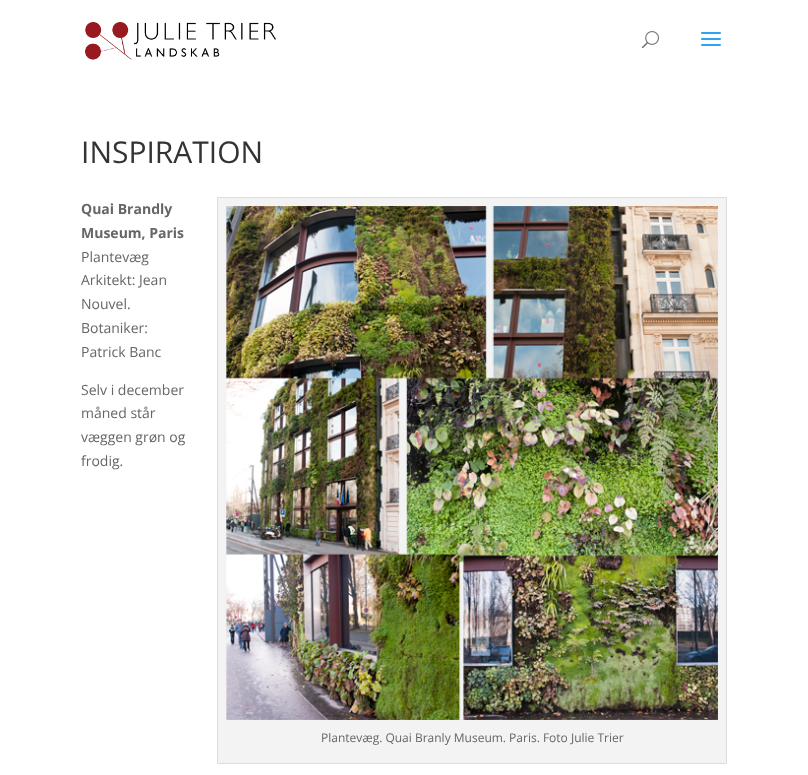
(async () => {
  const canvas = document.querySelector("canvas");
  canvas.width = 808;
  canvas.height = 775;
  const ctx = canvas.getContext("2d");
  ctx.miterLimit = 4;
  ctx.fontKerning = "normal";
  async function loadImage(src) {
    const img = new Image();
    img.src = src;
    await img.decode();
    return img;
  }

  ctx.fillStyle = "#ffffff";
  ctx.fillRect(0, 0, 808, 775);
  ctx.drawImage(await loadImage("img/1.png"), 85, 22, 191, 38);
  ctx.drawImage(await loadImage("img/2.png"), 642, 31, 17, 18);
  ctx.drawImage(await loadImage("img/3.png"), 701, 32, 20, 14);
  ctx.fillStyle = "#f3f3f3";
  ctx.beginPath();
  ctx.rect(217.5, 197.5, 509, 566);
  ctx.fill();
  ctx.strokeStyle = "#dddddd";
  ctx.stroke();
  ctx.drawImage(await loadImage("img/4.png"), 226, 206, 492, 514);
  ctx.font = "30px Open Sans";
  ctx.fillStyle = "#333333";
  ctx.fillText("INSPIRATION", 81, 163);
  ctx.font = "bold 14px Open Sans";
  ctx.fillStyle = "#666666";
  ctx.fillText("Quai Brandly", 81, 214);
  ctx.fillText("Museum, Paris", 81, 238);
  ctx.font = "14px Open Sans";
  for (const [text, x, y] of [
    ["Plantevæg", 81, 262],
    ["Arkitekt: Jean", 81, 285],
    ["Nouvel.", 81, 309],
    ["Botaniker:", 81, 333],
    ["Patrick Banc", 81, 357],
    ["Selv i december", 81, 395],
    ["måned står", 81, 418],
    ["væggen grøn og", 81, 442],
    ["frodig.", 81, 466],
  ]) {
    ctx.fillText(text, x, y);
  }
  ctx.font = "12px Open Sans";
  ctx.fillText("Plantevæg. Quai Branly Museum. Paris. Foto Julie Trier", 321, 742);
})();
